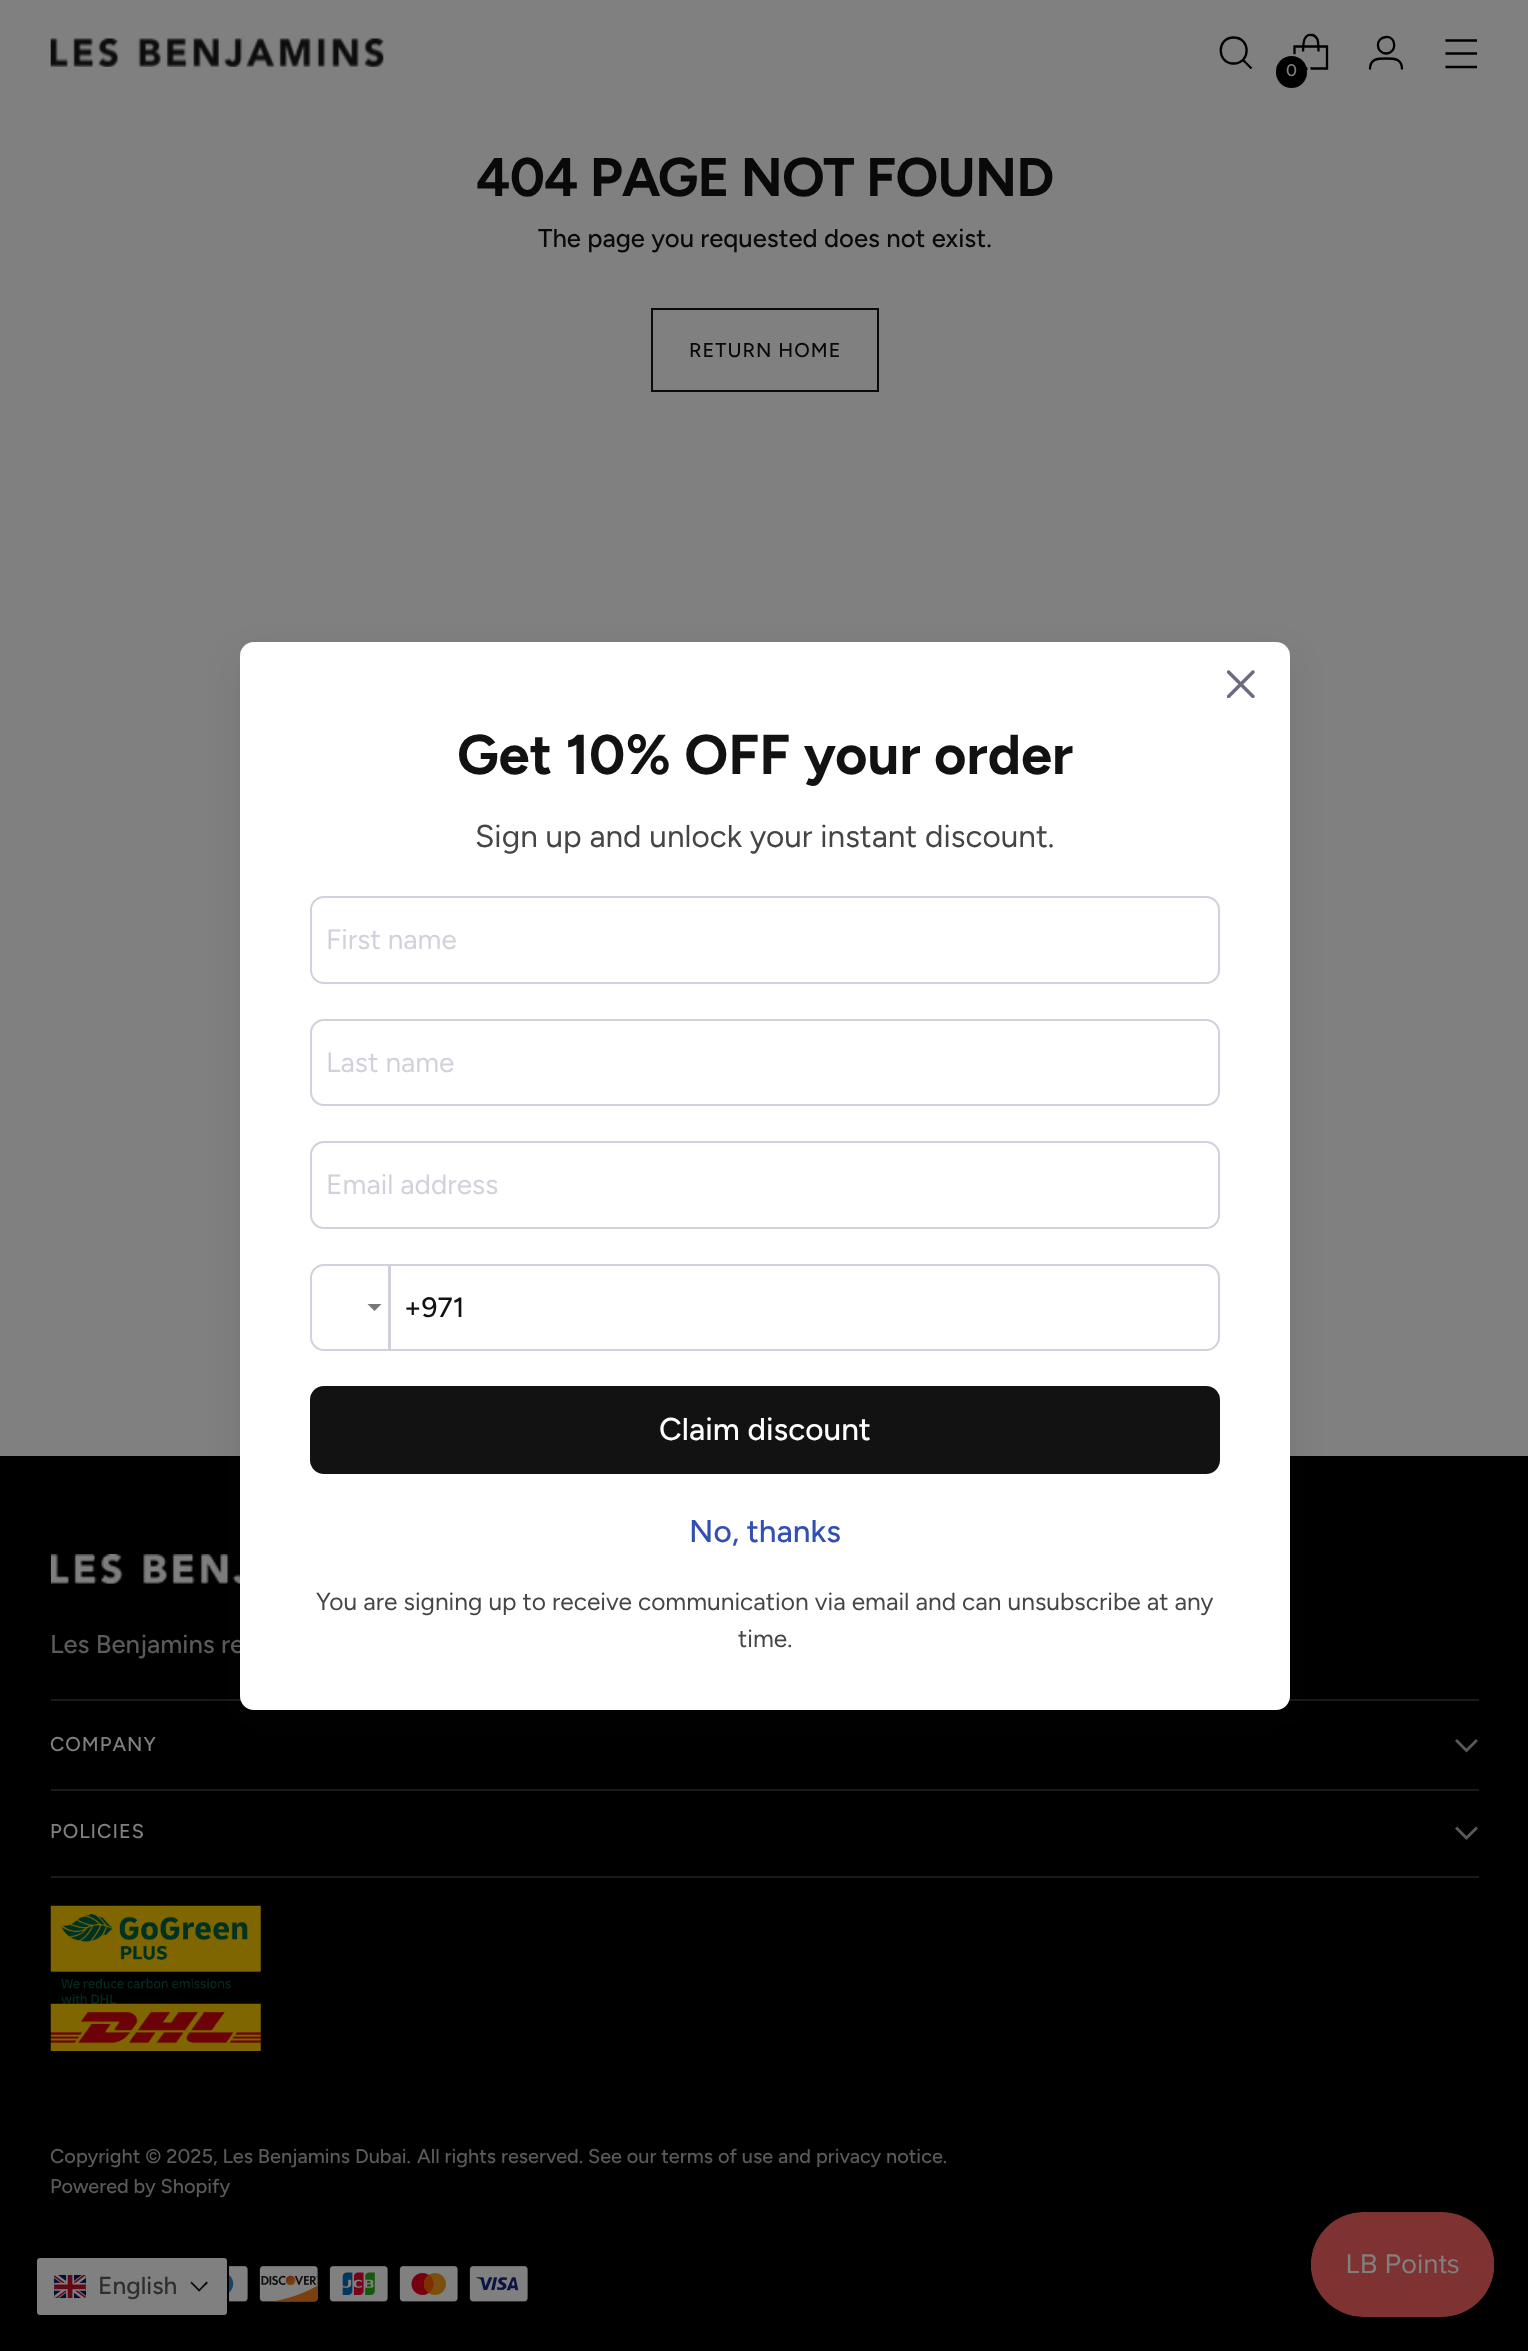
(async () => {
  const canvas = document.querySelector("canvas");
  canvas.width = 1528;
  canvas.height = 2351;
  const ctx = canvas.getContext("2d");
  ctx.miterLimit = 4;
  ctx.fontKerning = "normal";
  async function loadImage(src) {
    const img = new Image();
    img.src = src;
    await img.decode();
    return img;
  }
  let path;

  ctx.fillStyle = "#808080";
  ctx.fillRect(0, 0, 1528, 2351);
  ctx.drawImage(await loadImage("img/1.png"), 50, 38, 334, 29);
  path = new Path2D("M1233.5 63.5C1251 63.5 1251 37.5 1233.5 37.5C1216.5 37.5 1216.5 63.5 1233.5 63.5Z");
  ctx.strokeStyle = "#000000";
  ctx.lineWidth = 2.3;
  ctx.lineCap = "round";
  ctx.stroke(path);
  path = new Path2D("M1243 60L1251.5 68.5");
  ctx.lineCap = "butt";
  ctx.stroke(path);
  path = new Path2D("M1318.5 51.5C1318.5 47.5 1318.5 43.5 1317.5 39.5C1316.5 37.5 1315 35.5 1312.5 35C1302.5 33 1303.5 45.5 1303 51.5");
  ctx.lineJoin = "bevel";
  ctx.stroke(path);
  path = new Path2D("M1327 68.5V46.5H1294.5V68.5Z");
  ctx.lineJoin = "miter";
  ctx.stroke(path);
  ctx.beginPath();
  ctx.arc(1292.5, 72.5, 17, 0, Math.PI * 2);
  ctx.strokeStyle = "#808080";
  ctx.lineWidth = 3;
  ctx.stroke();
  ctx.fillStyle = "#000000";
  ctx.beginPath();
  ctx.roundRect(1276, 56, 31, 32, 15.5);
  ctx.fill();
  path = new Path2D("M1386 53.5C1397 53.5 1397 36 1386 37C1375 37.5 1375.5 53 1386 53.5ZM1370 69.5C1370 58.5 1377.5 58.5 1386 58.5C1394.5 58.5 1402 58.5 1402 69.5");
  ctx.strokeStyle = "#000000";
  ctx.lineWidth = 2.3;
  ctx.stroke(path);
  path = new Path2D("M1445.5 53.5H1477M1445.5 40.5H1477M1445.5 67H1477");
  ctx.stroke(path);
  ctx.strokeStyle = "#090909";
  ctx.lineWidth = 2;
  ctx.strokeRect(652, 309, 226, 82);
  ctx.fillRect(0, 1456, 1528, 895);
  ctx.fillStyle = "#1a1a1a";
  ctx.fillRect(51, 1699, 1428, 2);
  ctx.drawImage(await loadImage("img/2.png"), 50, 1554, 190, 30);
  ctx.fillRect(51, 1789, 1428, 2);
  path = new Path2D("M1456 1740L1466.5 1750.5L1477 1740");
  ctx.strokeStyle = "#5a5a5a";
  ctx.lineWidth = 2.8;
  ctx.stroke(path);
  ctx.fillRect(51, 1876, 1428, 2);
  path = new Path2D("M1456 1827.5L1466.5 1838L1477 1827.5");
  ctx.stroke(path);
  ctx.drawImage(await loadImage("img/3.png"), 50, 1905, 211, 99);
  ctx.drawImage(await loadImage("img/4.png"), 50, 2003, 211, 48);
  ctx.drawImage(await loadImage("img/5.png"), 229, 2266, 19, 36);
  ctx.drawImage(await loadImage("img/6.png"), 259, 2266, 59, 36);
  ctx.drawImage(await loadImage("img/7.png"), 329, 2266, 59, 36);
  ctx.drawImage(await loadImage("img/8.png"), 399, 2266, 59, 36);
  ctx.drawImage(await loadImage("img/9.png"), 469, 2266, 59, 36);
  ctx.fillStyle = "rgba(18, 17, 39, 0.1)";
  ctx.filter = "blur(17.5px)";
  ctx.beginPath();
  ctx.roundRect(240, 656, 1050, 1068, 14);
  ctx.fill();
  ctx.filter = "none";
  ctx.fillStyle = "#808080";
  ctx.beginPath();
  ctx.roundRect(36, 2257, 192, 59, 4);
  ctx.fill();
  ctx.strokeStyle = "#000000";
  ctx.lineWidth = 2;
  ctx.stroke();
  ctx.drawImage(await loadImage("img/11.png"), 54, 2275, 32, 23);
  ctx.fillStyle = "#0d0d0d";
  path = new Path2D("M206.5 2281.5L208 2283L199 2291.5L198 2290.5Z");
  ctx.fill(path);
  path = new Path2D("M191.5 2281.5L200.5 2290.5L199 2291.5L190.5 2283Z");
  ctx.fill(path);
  ctx.drawImage(await loadImage("img/12.png"), 1311, 2212, 184, 105);
  ctx.font = "500 17px Figtree";
  ctx.fillStyle = "#808080";
  ctx.fillText("0", 1286, 76);
  ctx.letterSpacing = "-0.8px";
  ctx.font = "bold 54.4px Figtree";
  ctx.fillStyle = "#090909";
  ctx.fillText("404 PAGE NOT FOUND", 476, 196);
  ctx.letterSpacing = "0px";
  ctx.font = "500 25.7px Figtree";
  ctx.fillText("The page you requested does not exist.", 538, 247);
  ctx.letterSpacing = "1px";
  ctx.font = "500 19.9px Figtree";
  ctx.fillText("RETURN HOME", 689, 357);
  ctx.letterSpacing = "0px";
  ctx.font = "500 25.7px Figtree";
  ctx.fillStyle = "#5a5a5a";
  ctx.fillText("Les Benjamins re", 50, 1653);
  ctx.letterSpacing = "1px";
  ctx.font = "500 19.9px Figtree";
  ctx.fillStyle = "#808080";
  ctx.fillText("COMPANY", 50, 1751);
  ctx.fillText("POLICIES", 50, 1838);
  ctx.letterSpacing = "0px";
  ctx.fillStyle = "#5a5a5a";
  for (const [text, x, y] of [
    ["Copyright © 2025, Les Benjamins Dubai.", 50, 2163],
    ["All rights reserved.", 417, 2163],
    ["See our terms of use and privacy notice.", 588, 2163],
    ["Powered by Shopify", 50, 2193],
  ]) {
    ctx.fillText(text, x, y);
  }
  ctx.fillStyle = "#ffffff";
  ctx.beginPath();
  ctx.roundRect(240, 642, 1050, 1068, 14);
  ctx.fill();
  ctx.drawImage(await loadImage("img/10.png"), 1227, 670, 28, 28);
  ctx.font = "bold 56px Figtree";
  ctx.fillStyle = "#121212";
  ctx.fillText("Get 10% OFF your order", 457, 774);
  ctx.font = "31.5px Figtree";
  ctx.fillStyle = "#454545";
  ctx.fillText("Sign up and unlock your instant discount.", 475, 847);
  ctx.beginPath();
  ctx.roundRect(311, 897, 908, 86, 13);
  ctx.strokeStyle = "#d1d1db";
  ctx.stroke();
  ctx.font = "28px Figtree";
  ctx.fillStyle = "#d1d1db";
  ctx.fillText("First name", 326, 949);
  ctx.beginPath();
  ctx.roundRect(311, 1020, 908, 85, 13);
  ctx.stroke();
  ctx.fillText("Last name", 326, 1072);
  ctx.beginPath();
  ctx.roundRect(311, 1142, 908, 86, 13);
  ctx.stroke();
  ctx.fillText("Email address", 326, 1194);
  ctx.beginPath();
  ctx.roundRect(311, 1265, 78, 85, [13, 0, 0, 13]);
  ctx.stroke();
  ctx.fillStyle = "#777777";
  path = new Path2D("M367.5 1304H381.5L374.5 1311Z");
  ctx.fill(path);
  ctx.fillStyle = "#ffffff";
  ctx.beginPath();
  ctx.roundRect(390, 1265, 829, 85, [0, 13, 13, 0]);
  ctx.fill();
  ctx.stroke();
  ctx.font = "500 28px Figtree";
  ctx.fillStyle = "#121212";
  ctx.fillText("+971", 404, 1317);
  ctx.beginPath();
  ctx.roundRect(310, 1386, 910, 88, 14);
  ctx.fill();
  ctx.font = "500 31.5px Figtree";
  ctx.fillStyle = "#ffffff";
  ctx.fillText("Claim discount", 659, 1440);
  ctx.fillStyle = "#334fb4";
  ctx.fillText("No, thanks", 689, 1542);
  ctx.font = "24.5px Figtree";
  ctx.fillStyle = "#454545";
  ctx.fillText("You are signing up to receive communication via email and can unsubscribe at any", 316, 1610);
  ctx.fillText("time.", 738, 1647);
  ctx.font = "500 24.5px Figtree";
  ctx.fillStyle = "#2e2e2e";
  ctx.fillText("English", 98, 2294);
})();
